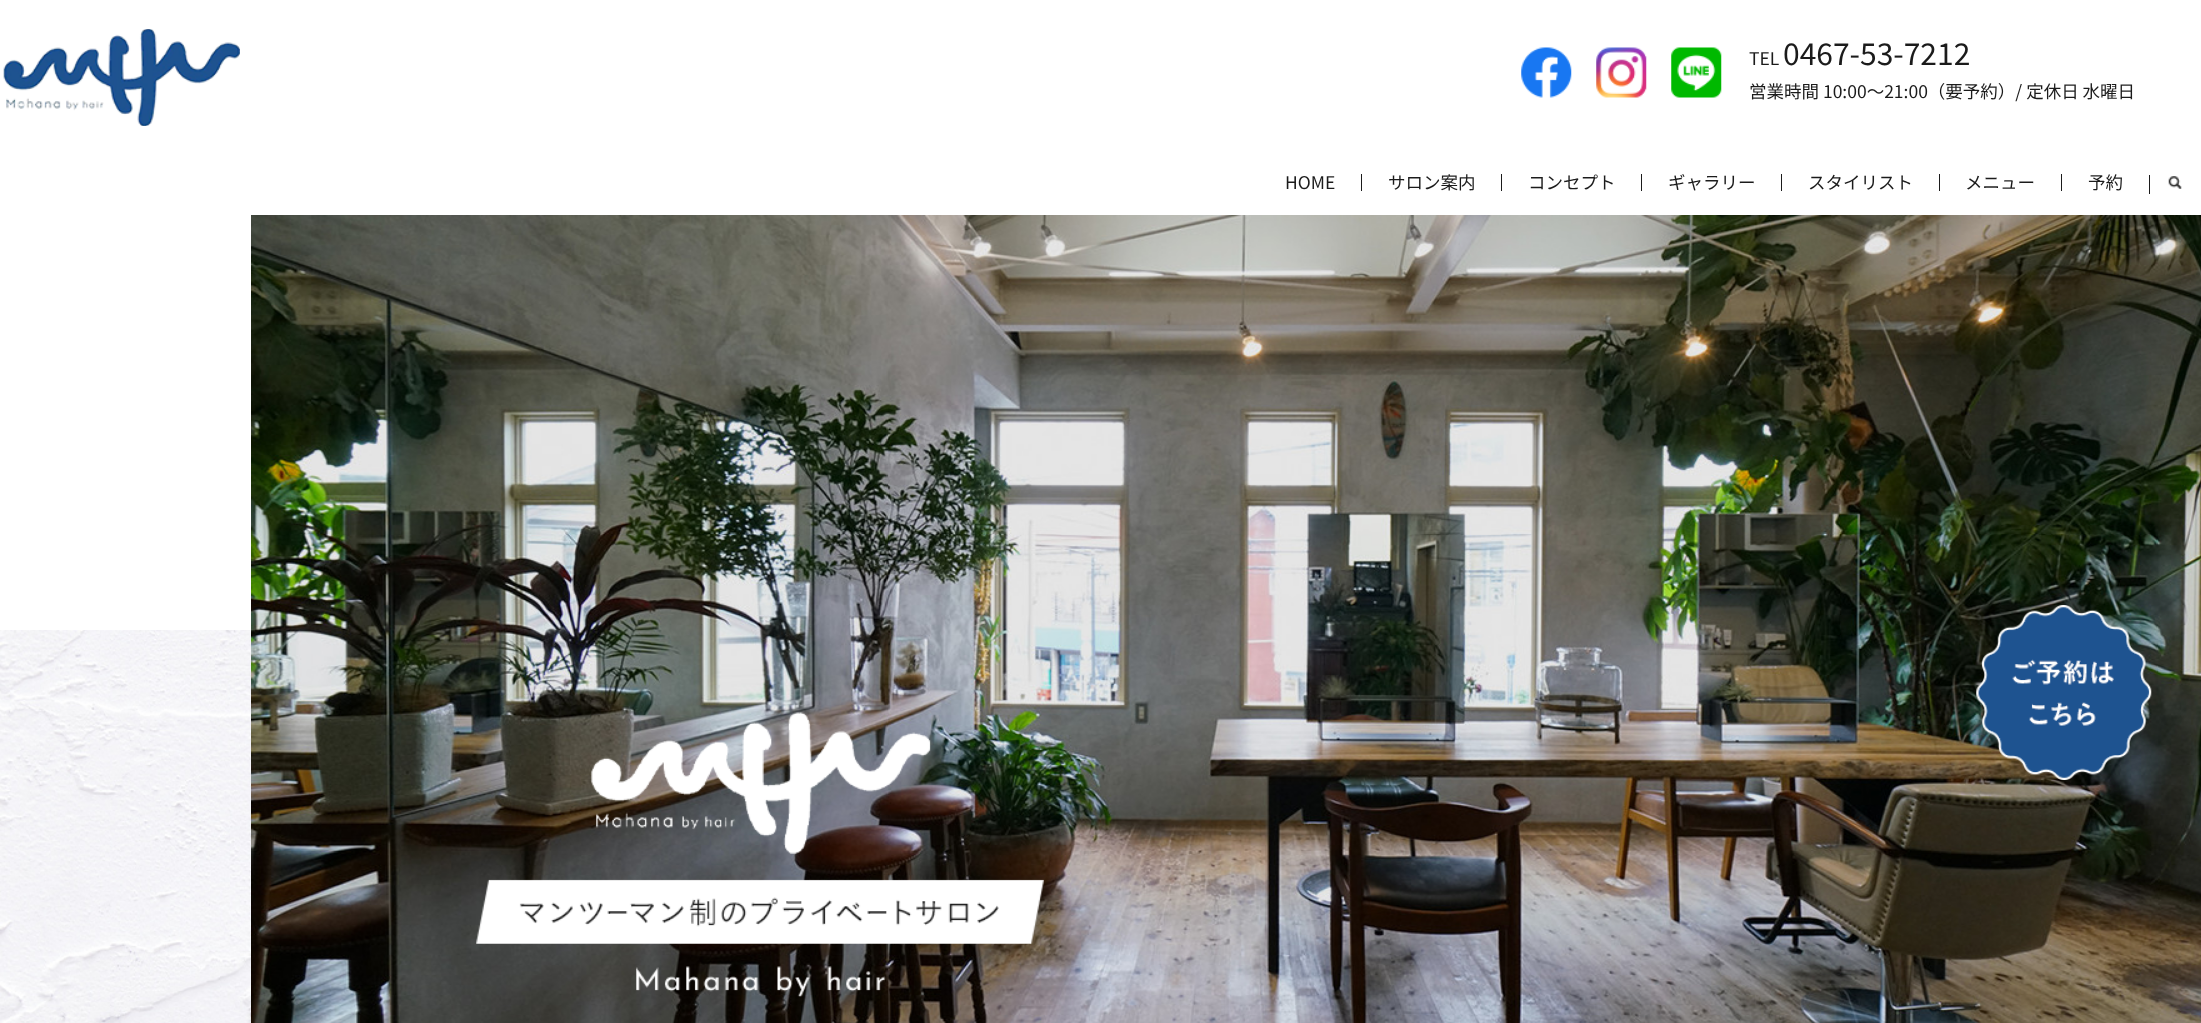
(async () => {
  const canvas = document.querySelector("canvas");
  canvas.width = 2201;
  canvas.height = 1023;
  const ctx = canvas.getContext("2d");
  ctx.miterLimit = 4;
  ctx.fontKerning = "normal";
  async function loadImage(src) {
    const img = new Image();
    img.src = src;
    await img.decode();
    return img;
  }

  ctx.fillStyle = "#ffffff";
  ctx.fillRect(0, 0, 2201, 1023);
  ctx.drawImage(await loadImage("img/1.png"), 3, 29, 237, 97);
  ctx.drawImage(await loadImage("img/2.png"), 1521, 47, 51, 51);
  ctx.drawImage(await loadImage("img/3.png"), 1596, 47, 51, 51);
  ctx.drawImage(await loadImage("img/4.png"), 1671, 47, 51, 51);
  for (const [x, y, w, h, color] of [
    [1361, 174, 1, 17, "#1b1b1b"],
    [1501, 174, 1, 17, "#1b1b1b"],
    [1641, 174, 1, 17, "#1b1b1b"],
    [1781, 174, 1, 17, "#1b1b1b"],
    [1939, 174, 1, 17, "#1b1b1b"],
    [2061, 174, 1, 17, "#1b1b1b"],
  ]) {
    ctx.fillStyle = color;
    ctx.fillRect(x, y, w, h);
  }
  ctx.drawImage(await loadImage("img/5.png"), 2168, 176, 14, 13);
  ctx.fillRect(2149, 175, 1, 19);
  ctx.drawImage(await loadImage("img/6.png"), 0, 630, 251, 393);
  ctx.drawImage(await loadImage("img/7.png"), 251, 215, 1950, 808);
  ctx.drawImage(await loadImage("img/8.png"), 476, 712, 568, 285);
  ctx.drawImage(await loadImage("img/9.png"), 1976, 605, 176, 175);
  ctx.font = "17.5px Noto Sans JP";
  ctx.fillText("TEL", 1749, 65);
  ctx.font = "30px Noto Sans JP";
  ctx.fillText("0467-53-7212", 1783, 65);
  ctx.font = "17.5px Noto Sans JP";
  for (const [text, x, y] of [
    ["営業時間 10:00〜21:00（要予約）/ 定休日 水曜日", 1749, 98],
    ["HOME", 1285, 189],
    ["サロン案内", 1388, 189],
    ["コンセプト", 1528, 189],
    ["ギャラリー", 1668, 189],
    ["スタイリスト", 1808, 189],
    ["メニュー", 1965, 189],
    ["予約", 2088, 189],
  ]) {
    ctx.fillText(text, x, y);
  }
})();
